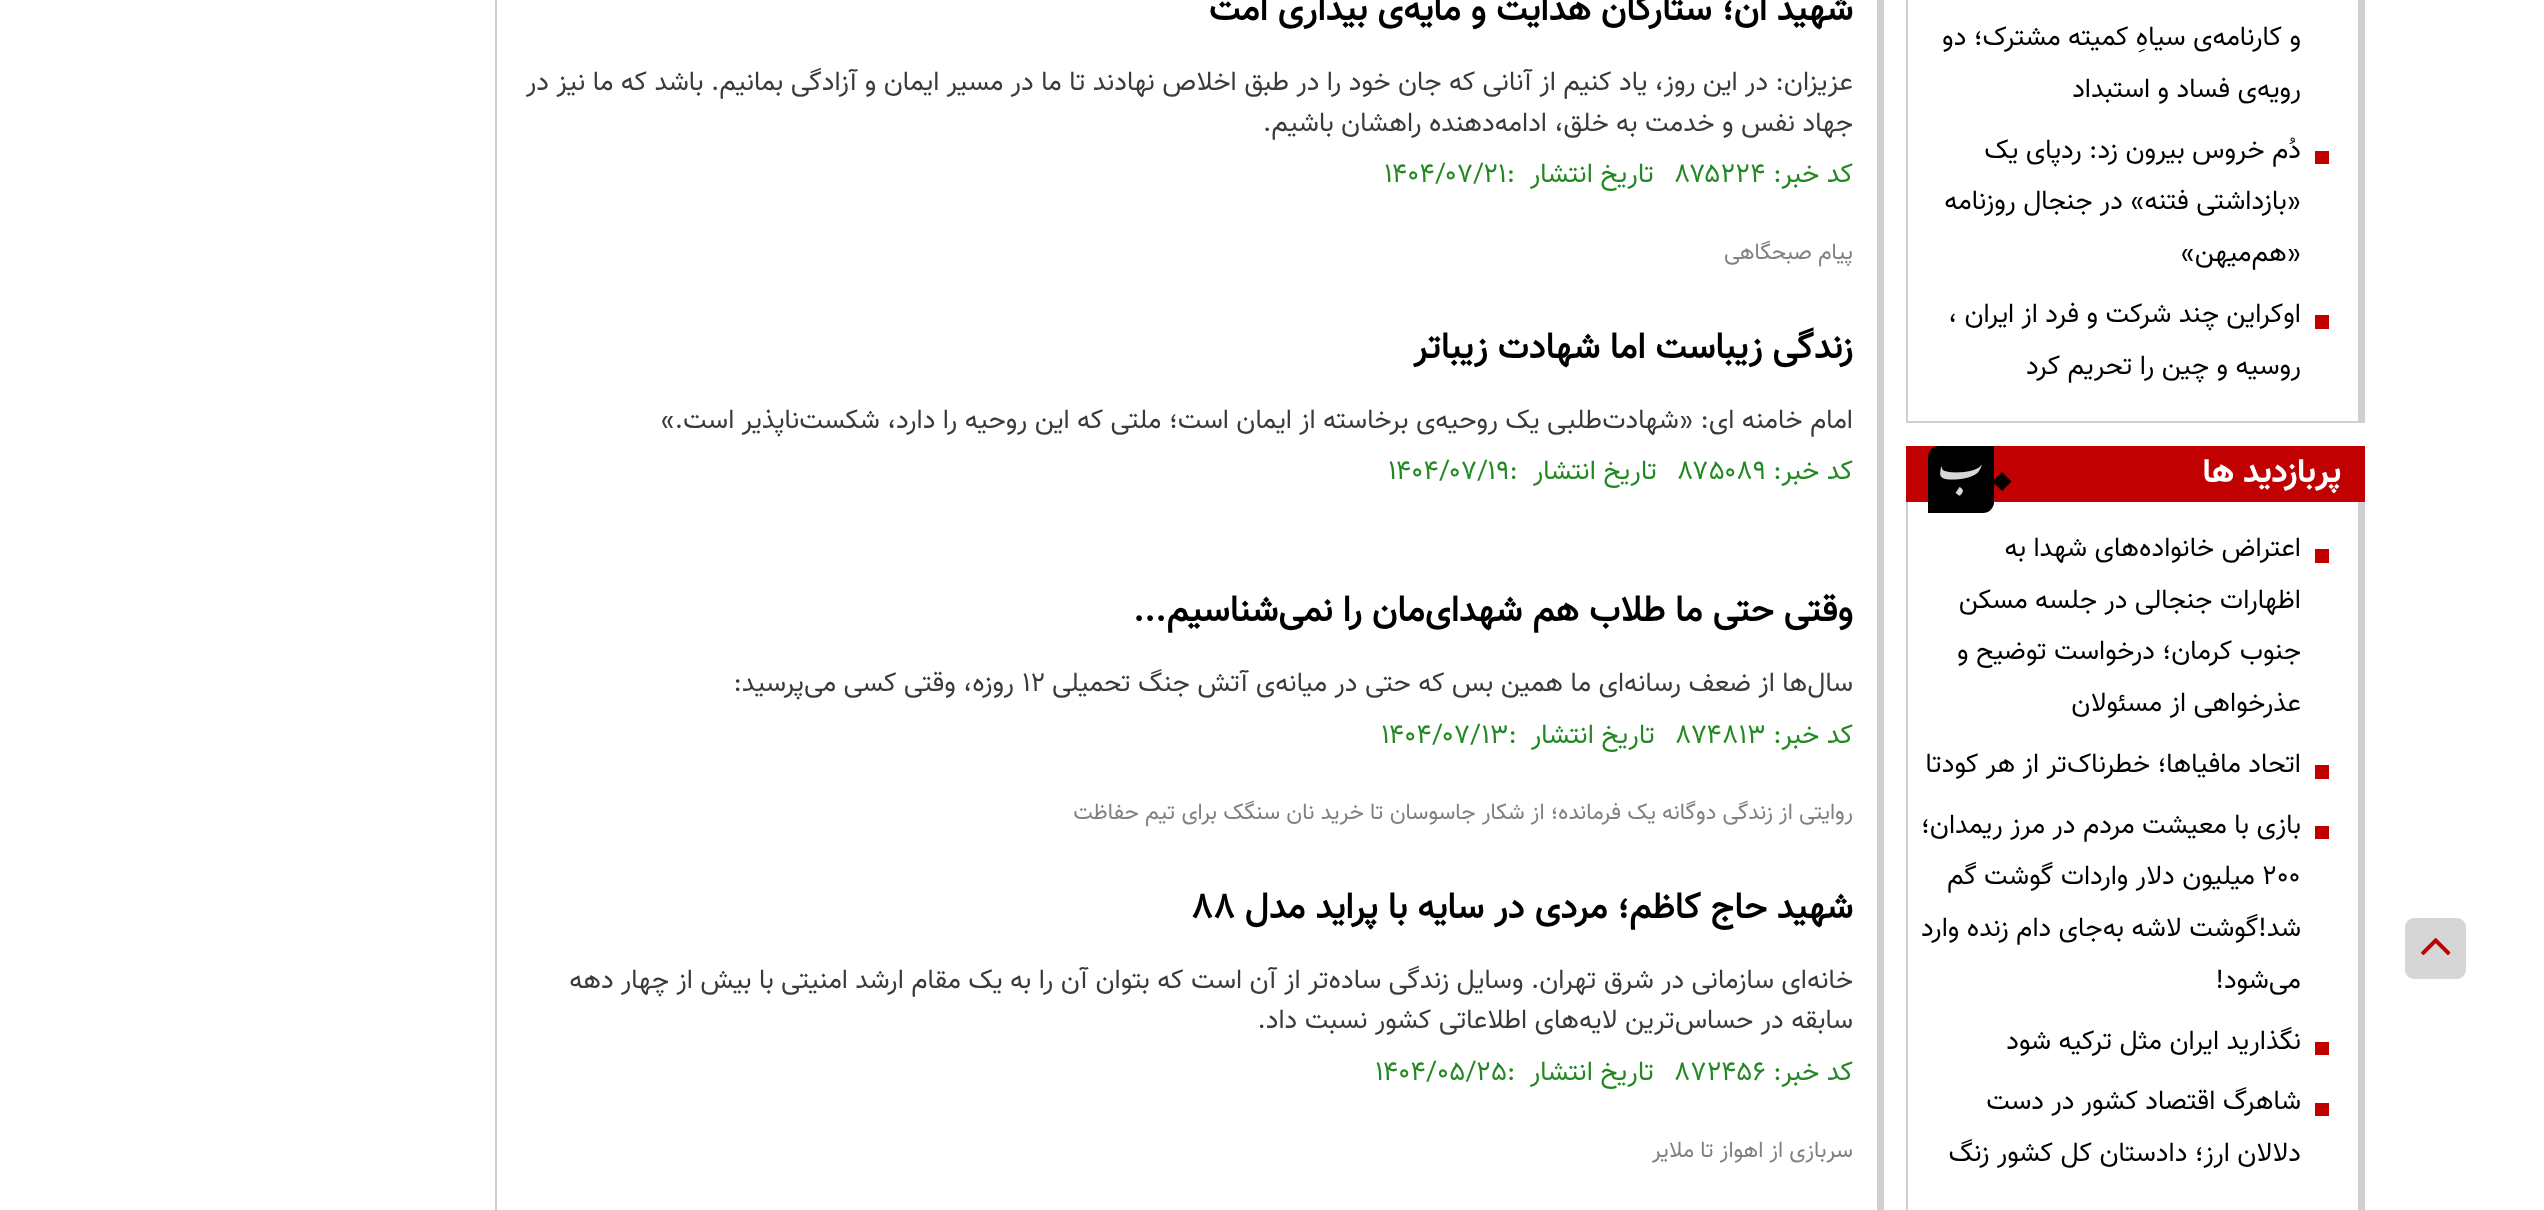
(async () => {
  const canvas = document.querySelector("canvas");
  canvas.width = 2544;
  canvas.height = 1210;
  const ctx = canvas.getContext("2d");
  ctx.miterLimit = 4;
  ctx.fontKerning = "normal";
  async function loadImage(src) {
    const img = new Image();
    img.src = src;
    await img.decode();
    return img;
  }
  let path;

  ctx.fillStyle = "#ffffff";
  ctx.fillRect(0, 0, 2544, 1210);
  ctx.fillStyle = "#d6d6d6";
  ctx.beginPath();
  ctx.roundRect(2404, 917, 63, 63, 10);
  ctx.fill();
  ctx.strokeStyle = "#ffffff";
  ctx.lineWidth = 2;
  ctx.stroke();
  ctx.drawImage(await loadImage("img/1.png"), 2421, 938, 30, 18);
  for (const [x, y, w, h, color] of [
    [2358, 0, 7, 423, "#d0d0d0"],
    [1906, 421, 459, 2, "#d0d0d0"],
    [1906, 0, 2, 423, "#d0d0d0"],
    [2315, 151, 14, 13, "#c00000"],
    [2315, 315, 14, 14, "#c00000"],
    [1906, 446, 459, 56, "#c10001"],
  ]) {
    ctx.fillStyle = color;
    ctx.fillRect(x, y, w, h);
  }
  ctx.fillStyle = "#000000";
  ctx.beginPath();
  ctx.roundRect(1928, 446, 66, 67, [11, 0, 11, 0]);
  ctx.fill();
  path = new Path2D("M2002 472L2011.5 481.5L2002 491L1992.5 481.5Z");
  ctx.fill(path);
  path = new Path2D("M1984 493L1983.5 470.5L1997.5 481.5Z");
  ctx.fill(path);
  ctx.drawImage(await loadImage("img/2.png"), 1940, 465, 42, 31);
  for (const [x, y, w, h, color] of [
    [2358, 502, 7, 708, "#d0d0d0"],
    [1906, 502, 2, 708, "#d0d0d0"],
    [2315, 549, 14, 14, "#c00000"],
    [2315, 765, 14, 14, "#c00000"],
    [2315, 826, 14, 13, "#c00000"],
    [2315, 1042, 14, 13, "#c00000"],
    [2315, 1103, 14, 13, "#c00000"],
    [1877, 0, 7, 1210, "#d0d0d0"],
    [495, 0, 2, 1210, "#d0d0d0"],
  ]) {
    ctx.fillStyle = color;
    ctx.fillRect(x, y, w, h);
  }
  ctx.direction = "rtl";
  ctx.font = "27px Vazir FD";
  ctx.fillStyle = "#000000";
  for (const [text, x, y] of [
    ["و کارنامه‌ی سیاهِ کمیته مشترک؛ دو", 2301, 45],
    ["رویه‌ی فساد و استبداد", 2301, 97],
    ["دُم خروس بیرون زد: ردپای یک", 2301, 158],
    ["«بازداشتی فتنه» در جنجال روزنامه", 2301, 209],
    ["«هم‌میهن»", 2301, 261],
    ["اوکراین چند شرکت و فرد از ایران ،", 2301, 322],
    ["روسیه و چین را تحریم کرد", 2301, 374],
  ]) {
    ctx.fillText(text, x, y);
  }
  ctx.font = "bold 33.75px 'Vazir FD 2'";
  ctx.fillStyle = "#ffffff";
  ctx.fillText("پربازدید ها", 2341, 482);
  ctx.font = "27px Vazir FD";
  ctx.fillStyle = "#000000";
  for (const [text, x, y] of [
    ["اعتراض خانواده‌های شهدا به", 2301, 556],
    ["اظهارات جنجالی در جلسه مسکن", 2301, 608],
    ["جنوب کرمان؛ درخواست توضیح و", 2301, 659],
    ["عذرخواهی از مسئولان", 2301, 711],
    ["اتحاد مافیاها؛ خطرناک‌تر از هر کودتا", 2301, 772],
    ["بازی با معیشت مردم در مرز ریمدان؛", 2301, 833],
  ]) {
    ctx.fillText(text, x, y);
  }
  ctx.direction = "ltr";
  ctx.fillText("200", 2262, 884);
  ctx.direction = "rtl";
  for (const [text, x, y] of [
    ["میلیون دلار واردات گوشت گم", 2255, 884],
    ["شد!گوشت لاشه به‌جای دام زنده وارد", 2301, 936],
    ["می‌شود!", 2301, 988],
    ["نگذارید ایران مثل ترکیه شود", 2301, 1049],
    ["شاهرگ اقتصاد کشور در دست", 2301, 1109],
    ["دلالان ارز؛ دادستان کل کشور زنگ", 2301, 1161],
  ]) {
    ctx.fillText(text, x, y);
  }
  ctx.font = "bold 36px Vazir FD";
  ctx.fillText("شهید", 1853, 20);
  ctx.fillText("ان؛ ستارگان هدایت و مایه‌ی بیداری امت", 1767, 20);
  ctx.font = "27px Vazir FD";
  ctx.fillStyle = "#3a3a3d";
  ctx.fillText("عزیزان: در این روز، یاد کنیم از آنانی که جان خود را در طبق اخلاص نهادند تا ما در مسیر ایمان و آزادگی بمانیم. باشد که ما نیز در", 1853, 90);
  ctx.fillText("جهاد نفس و خدمت به خلق، ادامه‌دهنده راهشان باشیم.", 1853, 131);
  ctx.fillStyle = "#228822";
  ctx.fillText("کد خبر:", 1853, 182);
  ctx.direction = "ltr";
  ctx.fillText("۸۷۵۲۲۴", 1676, 182);
  ctx.direction = "rtl";
  ctx.fillText("تاریخ انتشار", 1654, 182);
  ctx.direction = "ltr";
  ctx.fillText("۱۴۰۴/۰۷/۲۱:", 1384, 182);
  ctx.direction = "rtl";
  ctx.font = "22.5px Vazir FD";
  ctx.fillStyle = "#808080";
  ctx.fillText("پیام صبحگاهی", 1853, 259);
  ctx.font = "bold 36px Vazir FD";
  ctx.fillStyle = "#000000";
  ctx.fillText("زندگی زیباست اما شهادت زیباتر", 1853, 358);
  ctx.font = "27px Vazir FD";
  ctx.fillStyle = "#3a3a3d";
  ctx.fillText("امام خامنه‌ ای: «شهادت‌طلبی یک روحیه‌ی برخاسته از ایمان است؛ ملتی که این روحیه را دارد، شکست‌ناپذیر است.»", 1853, 428);
  ctx.fillStyle = "#228822";
  ctx.fillText("کد خبر:", 1853, 479);
  ctx.direction = "ltr";
  ctx.fillText("۸۷۵۰۸۹", 1679, 479);
  ctx.direction = "rtl";
  ctx.fillText("تاریخ انتشار", 1657, 479);
  ctx.direction = "ltr";
  ctx.fillText("۱۴۰۴/۰۷/۱۹:", 1388, 479);
  ctx.direction = "rtl";
  ctx.font = "bold 36px Vazir FD";
  ctx.fillStyle = "#000000";
  ctx.fillText("وقتی حتی ما طلاب هم شهدای‌مان را نمی‌شناسیم...", 1853, 621);
  ctx.font = "27px Vazir FD";
  ctx.fillStyle = "#3a3a3d";
  ctx.fillText("سال‌ها از ضعف رسانه‌ای ما همین بس که حتی در میانه‌ی آتش جنگ تحمیلی", 1853, 691);
  ctx.direction = "ltr";
  ctx.fillText("۱۲", 1022, 691);
  ctx.direction = "rtl";
  ctx.fillText("روزه، وقتی کسی می‌پرسید:", 1014, 691);
  ctx.fillStyle = "#228822";
  ctx.fillText("کد خبر:", 1853, 743);
  ctx.direction = "ltr";
  ctx.fillText("۸۷۴۸۱۳", 1677, 743);
  ctx.direction = "rtl";
  ctx.fillText("تاریخ انتشار", 1655, 743);
  ctx.direction = "ltr";
  ctx.fillText("۱۴۰۴/۰۷/۱۳:", 1381, 743);
  ctx.direction = "rtl";
  ctx.font = "22.5px Vazir FD";
  ctx.fillStyle = "#808080";
  ctx.fillText("روایتی از زندگی دوگانه یک فرمانده؛ از شکار جاسوسان تا خرید نان سنگک برای تیم حفاظت", 1853, 819);
  ctx.font = "bold 36px Vazir FD";
  ctx.fillStyle = "#000000";
  ctx.fillText("شهید", 1853, 918);
  ctx.fillText("حاج کاظم؛ مردی در سایه با پراید مدل", 1767, 918);
  ctx.direction = "ltr";
  ctx.fillText("۸۸", 1191, 918);
  ctx.direction = "rtl";
  ctx.font = "27px Vazir FD";
  ctx.fillStyle = "#3a3a3d";
  ctx.fillText("خانه‌ای سازمانی در شرق تهران. وسایل زندگی ساده‌تر از آن است که بتوان آن را به یک مقام ارشد امنیتی با بیش از چهار دهه", 1853, 988);
  ctx.fillText("سابقه در حساس‌ترین لایه‌های اطلاعاتی کشور نسبت داد.", 1853, 1028);
  ctx.fillStyle = "#228822";
  ctx.fillText("کد خبر:", 1853, 1080);
  ctx.direction = "ltr";
  ctx.fillText("۸۷۲۴۵۶", 1676, 1080);
  ctx.direction = "rtl";
  ctx.fillText("تاریخ انتشار", 1654, 1080);
  ctx.direction = "ltr";
  ctx.fillText("۱۴۰۴/۰۵/۲۵:", 1375, 1080);
  ctx.direction = "rtl";
  ctx.font = "22.5px Vazir FD";
  ctx.fillStyle = "#808080";
  ctx.fillText("سربازی از اهواز تا ملایر", 1853, 1157);
})();
